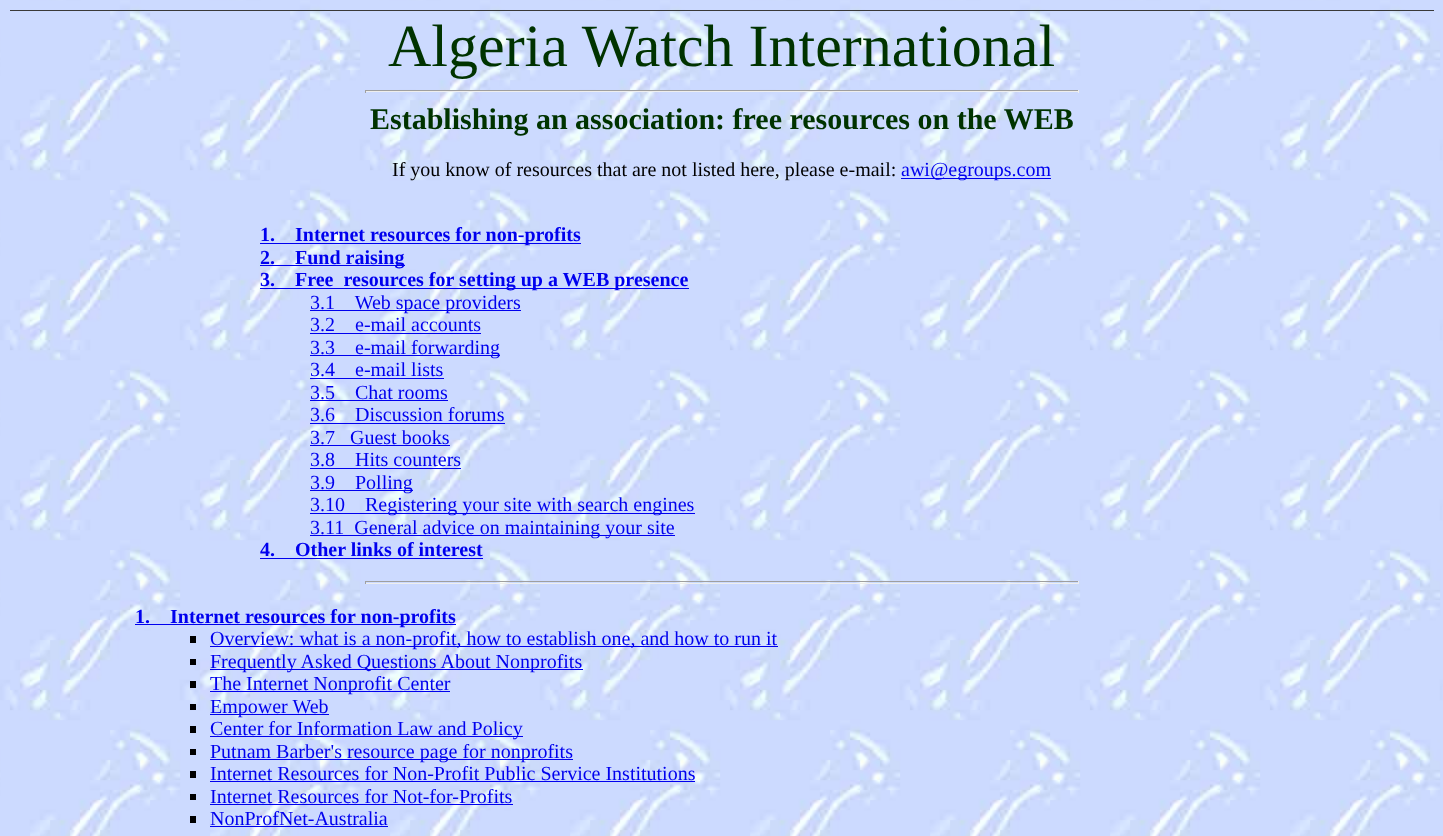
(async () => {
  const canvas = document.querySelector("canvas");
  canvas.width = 1443;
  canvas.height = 836;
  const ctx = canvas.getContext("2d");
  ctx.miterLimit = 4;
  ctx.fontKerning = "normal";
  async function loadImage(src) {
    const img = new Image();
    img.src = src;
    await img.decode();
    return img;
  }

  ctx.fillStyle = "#ffffff";
  ctx.fillRect(0, 0, 1443, 836);
  ctx.drawImage(await loadImage("img/1.png"), 0, 0, 1443, 836);
  for (const [x, y, w, h, color] of [
    [10, 10, 1424, 1, "#393939"],
    [365, 90, 714, 1, "#9f9f9f"],
    [1078, 90, 1, 3, "#eeeeee"],
    [365, 91, 714, 1, "#eeeeee"],
    [365, 90, 1, 3, "#9f9f9f"],
    [901, 178, 150, 1, "#0000ee"],
    [260, 243, 321, 1, "#0000ee"],
    [260, 265, 145, 1, "#0000ee"],
    [260, 288, 429, 1, "#0000ee"],
    [310, 310, 211, 1, "#0000ee"],
    [310, 333, 171, 1, "#0000ee"],
    [310, 355, 190, 1, "#0000ee"],
    [310, 378, 134, 1, "#0000ee"],
    [310, 400, 138, 1, "#0000ee"],
    [310, 423, 195, 1, "#0000ee"],
    [310, 445, 140, 1, "#0000ee"],
    [310, 468, 151, 1, "#0000ee"],
    [310, 490, 103, 1, "#0000ee"],
    [310, 513, 385, 1, "#0000ee"],
    [310, 535, 365, 1, "#0000ee"],
    [260, 558, 223, 1, "#0000ee"],
    [365, 581, 714, 1, "#9f9f9f"],
    [1078, 581, 1, 3, "#eeeeee"],
    [365, 583, 714, 1, "#eeeeee"],
    [365, 581, 1, 3, "#9f9f9f"],
    [135, 624, 321, 1, "#0000ee"],
    [190, 636, 6, 7, "#000000"],
    [210, 646, 568, 1, "#0000ee"],
    [190, 659, 6, 6, "#000000"],
    [210, 669, 373, 1, "#0000ee"],
    [190, 681, 6, 7, "#000000"],
    [210, 691, 240, 1, "#0000ee"],
    [190, 704, 6, 6, "#000000"],
    [210, 714, 119, 1, "#0000ee"],
    [190, 726, 6, 7, "#000000"],
    [210, 736, 313, 1, "#0000ee"],
    [190, 749, 6, 6, "#000000"],
    [210, 759, 363, 1, "#0000ee"],
    [190, 771, 6, 7, "#000000"],
    [210, 781, 485, 1, "#0000ee"],
    [190, 794, 6, 6, "#000000"],
    [210, 804, 303, 1, "#0000ee"],
    [190, 816, 6, 7, "#000000"],
    [210, 826, 178, 1, "#0000ee"],
  ]) {
    ctx.fillStyle = color;
    ctx.fillRect(x, y, w, h);
  }
  ctx.font = "60px Liberation Serif";
  ctx.fillStyle = "#003300";
  ctx.fillText("Algeria Watch International", 388, 66);
  ctx.font = "bold 30px Liberation Serif";
  ctx.fillText("Establishing an association: free resources on the WEB", 370, 129);
  ctx.font = "20px Liberation Serif";
  ctx.fillStyle = "#000000";
  ctx.fillText("If you know of resources that are not listed here, please e-mail:", 392, 176);
  ctx.fillStyle = "#0000ee";
  ctx.fillText("awi@egroups.com", 901, 176);
  ctx.font = "bold 20px Liberation Serif";
  for (const [text, x, y] of [
    ["1.    Internet resources for non-profits", 260, 241],
    ["2.    Fund raising", 260, 264],
    ["3.    Free  resources for setting up a WEB presence", 260, 286],
  ]) {
    ctx.fillText(text, x, y);
  }
  ctx.font = "20px Liberation Serif";
  for (const [text, x, y] of [
    ["3.1    Web space providers", 310, 309],
    ["3.2    e-mail accounts", 310, 331],
    ["3.3    e-mail forwarding", 310, 354],
    ["3.4    e-mail lists", 310, 376],
    ["3.5    Chat rooms", 310, 399],
    ["3.6    Discussion forums", 310, 421],
    ["3.7   Guest books", 310, 444],
    ["3.8    Hits counters", 310, 466],
    ["3.9    Polling", 310, 489],
    ["3.10    Registering your site with search engines", 310, 511],
    ["3.11  General advice on maintaining your site", 310, 534],
  ]) {
    ctx.fillText(text, x, y);
  }
  ctx.font = "bold 20px Liberation Serif";
  ctx.fillText("4.    Other links of interest", 260, 556);
  ctx.fillText("1.    Internet resources for non-profits", 135, 623);
  ctx.font = "20px Liberation Serif";
  for (const [text, x, y] of [
    ["Overview: what is a non-profit, how to establish one, and how to run it", 210, 645],
    ["Frequently Asked Questions About Nonprofits", 210, 668],
    ["The Internet Nonprofit Center", 210, 690],
    ["Empower Web", 210, 713],
    ["Center for Information Law and Policy", 210, 735],
    ["Putnam Barber's resource page for nonprofits", 210, 758],
    ["Internet Resources for Non-Profit Public Service Institutions", 210, 780],
    ["Internet Resources for Not-for-Profits", 210, 803],
    ["NonProfNet-Australia", 210, 825],
  ]) {
    ctx.fillText(text, x, y);
  }
})();
